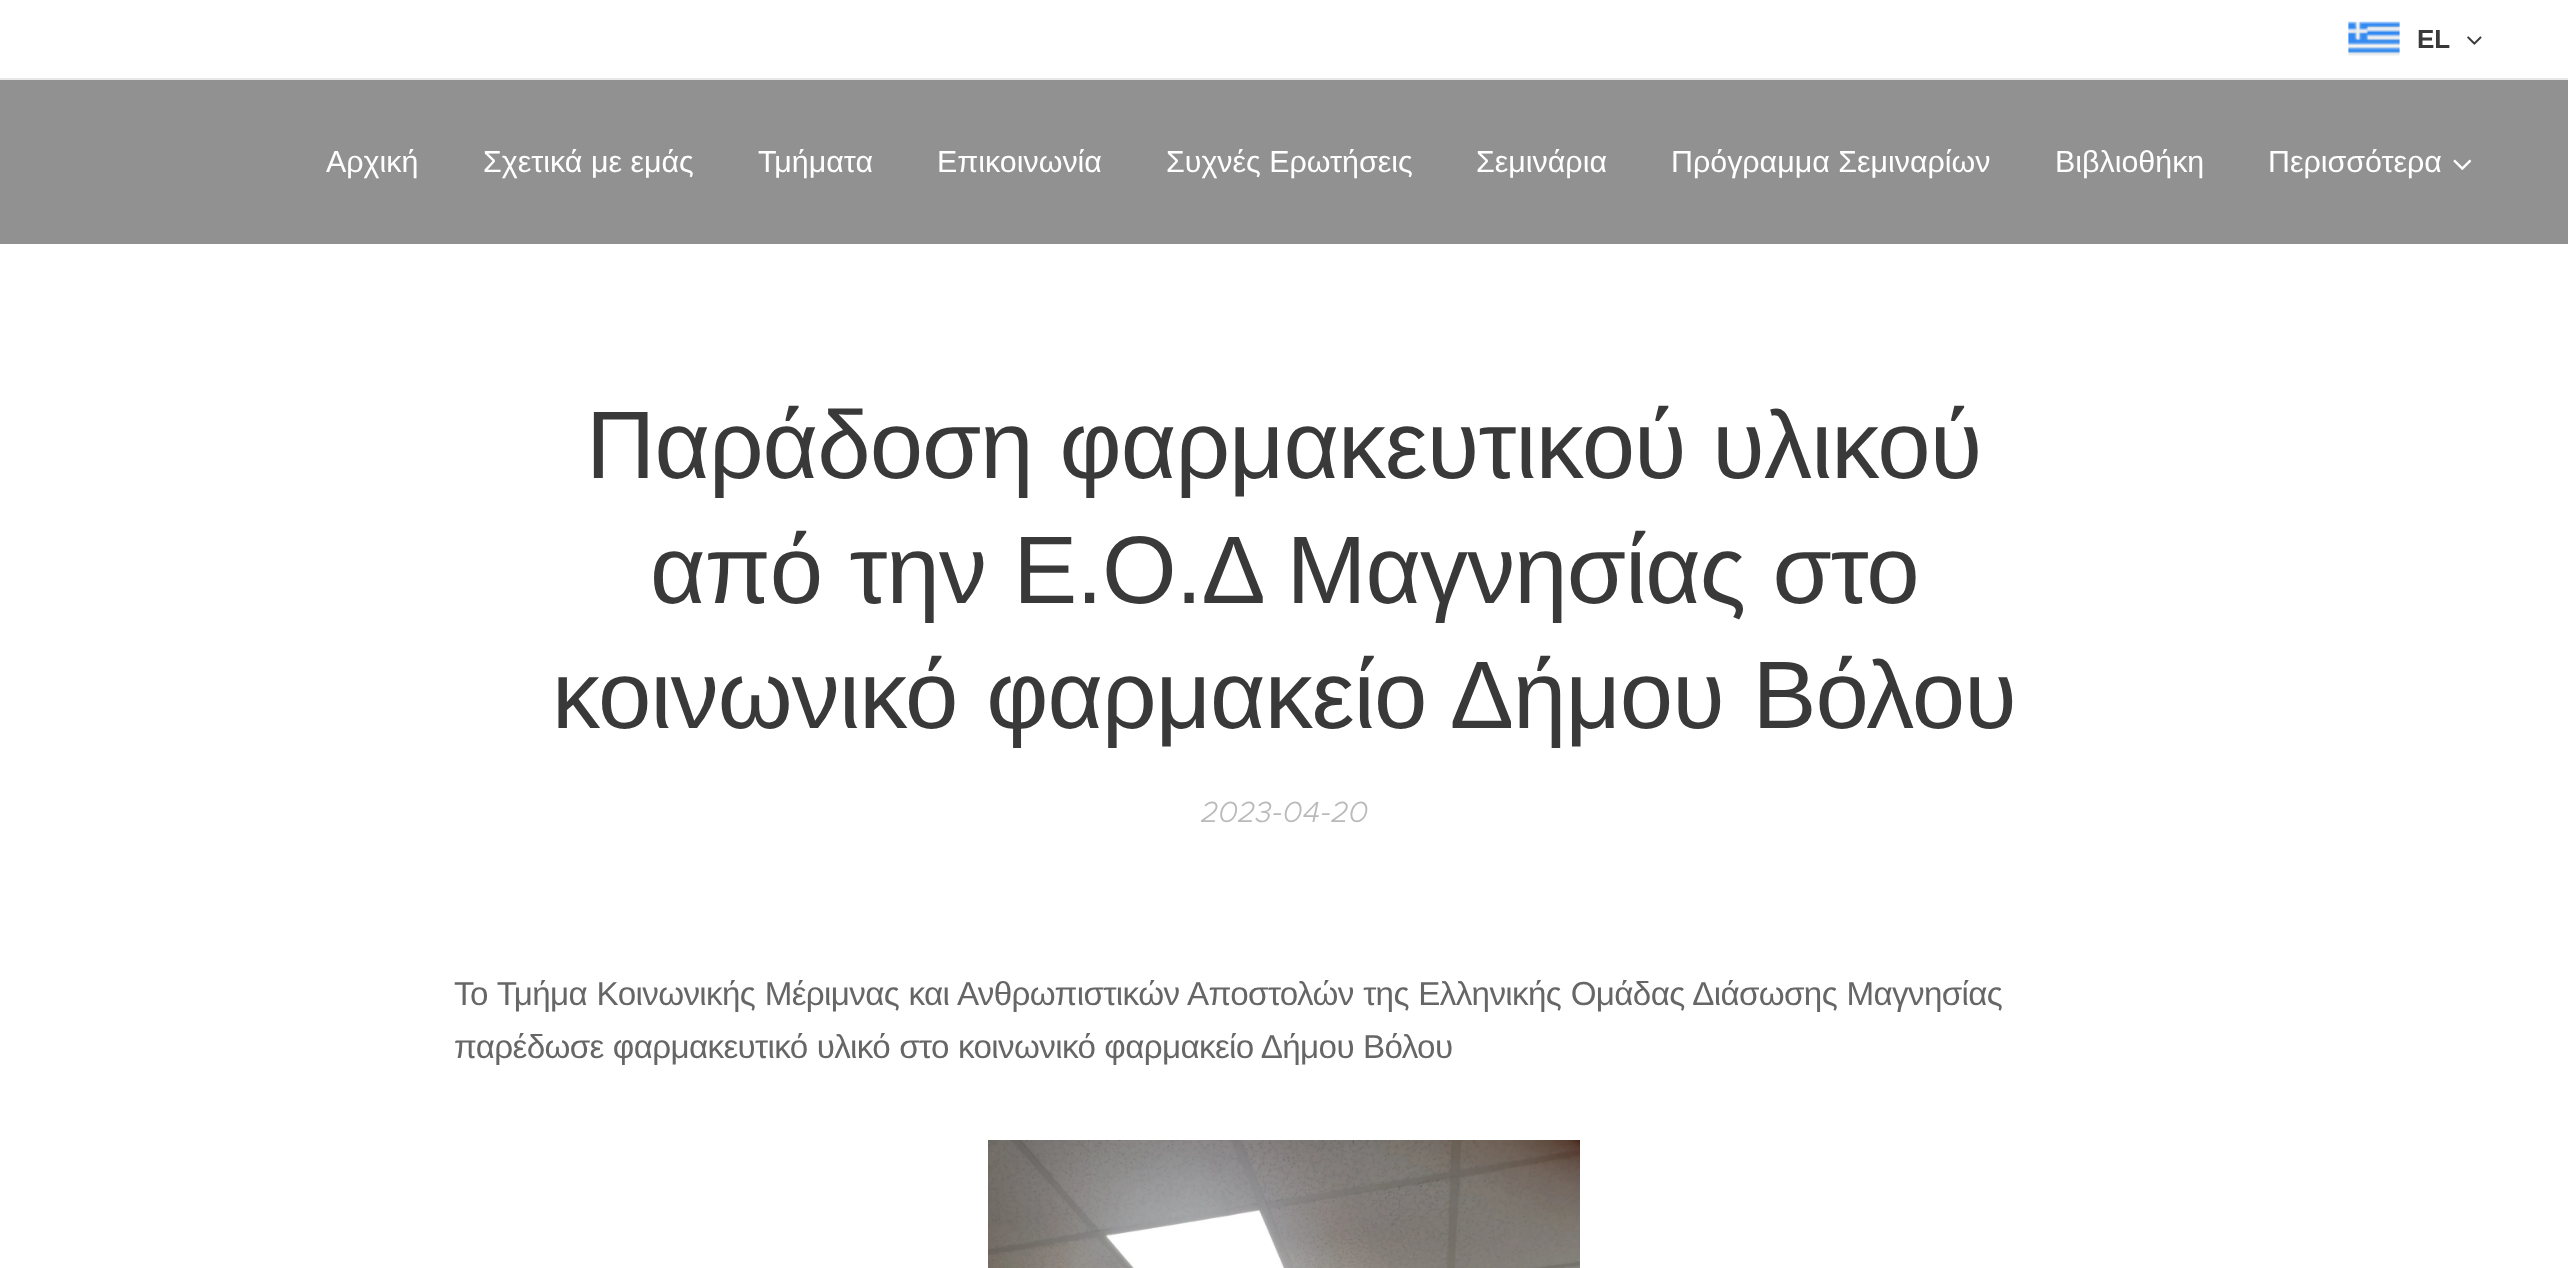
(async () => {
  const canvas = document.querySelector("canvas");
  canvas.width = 2568;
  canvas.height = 1268;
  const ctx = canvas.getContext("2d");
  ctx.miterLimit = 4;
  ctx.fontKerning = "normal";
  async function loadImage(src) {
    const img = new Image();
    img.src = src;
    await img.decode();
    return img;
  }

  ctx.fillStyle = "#ffffff";
  ctx.fillRect(0, 0, 2568, 1268);
  ctx.drawImage(await loadImage("img/1.png"), 2348, 21, 52, 35);
  ctx.drawImage(await loadImage("img/2.png"), 2467, 36, 15, 9);
  ctx.fillStyle = "#e8e8e8";
  ctx.fillRect(0, 78, 2568, 2);
  ctx.fillStyle = "#919191";
  ctx.fillRect(0, 80, 2568, 164);
  ctx.drawImage(await loadImage("img/3.png"), 2453, 159, 19, 11);
  ctx.drawImage(await loadImage("img/4.png"), 988, 1140, 592, 128);
  ctx.font = "bold 26px Liberation Sans";
  ctx.fillStyle = "#393939";
  ctx.fillText("EL", 2417, 48);
  ctx.font = "30.4px Liberation Sans";
  ctx.fillStyle = "#ffffff";
  for (const [text, x, y] of [
    ["Αρχική", 326, 172],
    ["Σχετικά με εμάς", 483, 172],
    ["Τμήματα", 758, 172],
    ["Επικοινωνία", 937, 172],
    ["Συχνές Ερωτήσεις", 1166, 172],
    ["Σεμινάρια", 1476, 172],
    ["Πρόγραμμα Σεμιναρίων", 1671, 172],
    ["Βιβλιοθήκη", 2055, 172],
    ["Περισσότερα", 2268, 172],
  ]) {
    ctx.fillText(text, x, y);
  }
  ctx.letterSpacing = "-0.95px";
  ctx.wordSpacing = "1px";
  ctx.font = "96px Liberation Sans";
  ctx.fillStyle = "#393939";
  ctx.fillText("Παράδοση φαρμακευτικού υλικού", 586, 478);
  ctx.wordSpacing = "1.5px";
  ctx.fillText("από την Ε.Ο.Δ Μαγνησίας στο", 650, 603);
  ctx.wordSpacing = "3px";
  ctx.fillText("κοινωνικό φαρμακείο Δήμου Βόλου", 552, 728);
  ctx.letterSpacing = "0px";
  ctx.wordSpacing = "0px";
  ctx.font = "italic 300 29.25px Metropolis";
  ctx.fillStyle = "#bababa";
  ctx.fillText("2023-04-20", 1201, 822);
  ctx.letterSpacing = "-0.65px";
  ctx.wordSpacing = "0.9px";
  ctx.font = "33.2px Liberation Sans";
  ctx.fillStyle = "#666666";
  ctx.fillText("Το Τμήμα Κοινωνικής Μέριμνας και Ανθρωπιστικών Αποστολών της Ελληνικής Ομάδας Διάσωσης Μαγνησίας", 454, 1005);
  ctx.wordSpacing = "0.5px";
  ctx.fillText("παρέδωσε φαρμακευτικό υλικό στο κοινωνικό φαρμακείο Δήμου Βόλου", 454, 1058);
})();
